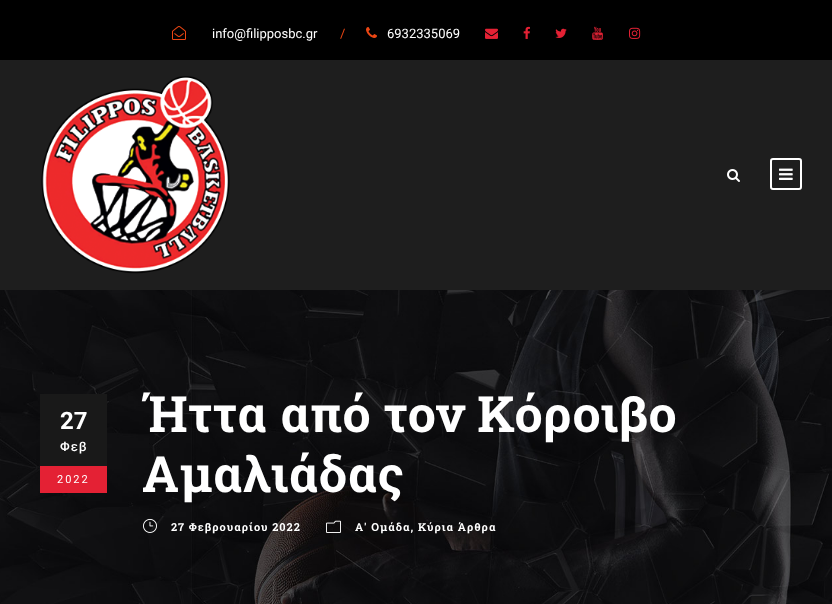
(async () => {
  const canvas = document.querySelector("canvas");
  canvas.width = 832;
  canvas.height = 604;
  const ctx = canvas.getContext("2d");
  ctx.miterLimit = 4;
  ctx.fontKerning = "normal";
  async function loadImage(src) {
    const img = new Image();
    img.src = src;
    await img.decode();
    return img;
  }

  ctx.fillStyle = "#000000";
  ctx.fillRect(0, 0, 832, 604);
  ctx.drawImage(await loadImage("img/1.png"), 172, 26, 14, 14);
  ctx.drawImage(await loadImage("img/2.png"), 366, 27, 11, 11);
  ctx.drawImage(await loadImage("img/3.png"), 485, 28, 13, 11);
  ctx.drawImage(await loadImage("img/4.png"), 523, 26, 7, 13);
  ctx.drawImage(await loadImage("img/5.png"), 555, 28, 12, 10);
  ctx.drawImage(await loadImage("img/6.png"), 592, 26, 11, 14);
  ctx.drawImage(await loadImage("img/7.png"), 629, 27, 12, 12);
  ctx.fillStyle = "#1e1e1e";
  ctx.fillRect(0, 60, 832, 230);
  ctx.drawImage(await loadImage("img/8.png"), 41, 76, 189, 198);
  ctx.drawImage(await loadImage("img/9.png"), 727, 169, 13, 13);
  ctx.beginPath();
  ctx.roundRect(771, 159, 30, 30, 2);
  ctx.strokeStyle = "#ffffff";
  ctx.lineWidth = 2;
  ctx.stroke();
  ctx.drawImage(await loadImage("img/10.png"), 779, 168, 14, 12);
  ctx.drawImage(await loadImage("img/11.png"), 0, 290, 832, 314);
  ctx.fillStyle = "#191919";
  ctx.fillRect(40, 394, 67, 72);
  ctx.fillStyle = "#e42134";
  ctx.fillRect(40, 466, 67, 27);
  ctx.drawImage(await loadImage("img/12.png"), 143, 518, 14, 15);
  ctx.drawImage(await loadImage("img/13.png"), 326, 520, 15, 13);
  ctx.font = "13px Roboto";
  ctx.fillStyle = "#ffffff";
  ctx.fillText("info@filipposbc.gr", 212, 38);
  ctx.fillStyle = "#ec4613";
  ctx.fillText("/", 340, 38);
  ctx.fillStyle = "#ffffff";
  ctx.fillText("6932335069", 387, 38);
  ctx.font = "bold 24px Roboto";
  ctx.fillText("27", 60, 429);
  ctx.letterSpacing = "1px";
  ctx.font = "500 13px Roboto";
  ctx.fillText("Φεβ", 60, 451);
  ctx.letterSpacing = "2px";
  ctx.font = "11px Roboto";
  ctx.fillText("2022", 57, 483);
  ctx.letterSpacing = "0.5px";
  ctx.font = "bold 50px Roboto Slab";
  ctx.fillText("Ήττα από τον Κόροιβο", 142, 432);
  ctx.fillText("Αμαλιάδας", 142, 492);
  ctx.letterSpacing = "1px";
  ctx.font = "bold 11px Roboto Slab";
  ctx.fillText("27 Φεβρουαρίου 2022", 171, 531);
  ctx.fillText("Α' Ομάδα, Κύρια Άρθρα", 355, 531);
})();
